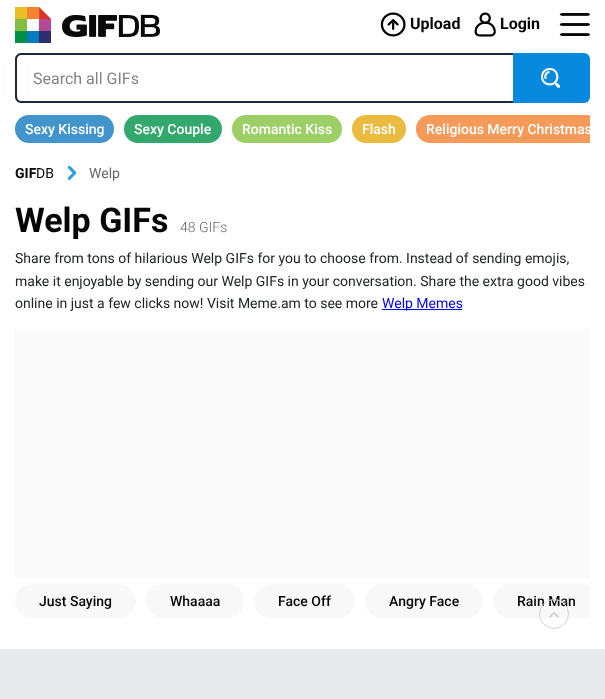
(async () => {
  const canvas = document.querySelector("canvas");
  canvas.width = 605;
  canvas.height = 699;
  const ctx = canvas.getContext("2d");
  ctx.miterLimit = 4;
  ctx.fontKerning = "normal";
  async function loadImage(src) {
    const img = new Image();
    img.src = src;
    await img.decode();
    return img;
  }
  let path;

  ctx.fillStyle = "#ffffff";
  ctx.fillRect(0, 0, 605, 699);
  ctx.drawImage(await loadImage("img/1.png"), 15, 7, 145, 36);
  ctx.drawImage(await loadImage("img/2.png"), 380, 12, 26, 25);
  ctx.drawImage(await loadImage("img/3.png"), 474, 12, 22, 25);
  ctx.drawImage(await loadImage("img/4.png"), 559, 13, 31, 23);
  ctx.fillStyle = "#078add";
  ctx.beginPath();
  ctx.roundRect(512, 53, 78, 50, [0, 6, 6, 0]);
  ctx.fill();
  ctx.fillStyle = "#ffffff";
  ctx.beginPath();
  ctx.roundRect(17, 55, 496, 46, [4, 0, 0, 4]);
  ctx.fill();
  ctx.fillStyle = "#1f273e";
  path = new Path2D("M21 53H513V103H21C18 103 15 100 15 97V59C15 56 18 53 21 53ZM21 55H513V101H21C19 101 17 99 17 97V59C17 57 19 55 21 55Z");
  ctx.fill(path, "evenodd");
  ctx.drawImage(await loadImage("img/5.png"), 541, 68, 20, 20);
  ctx.fillStyle = "#4195cc";
  ctx.beginPath();
  ctx.roundRect(15, 115, 99, 28, 14);
  ctx.fill();
  ctx.fillStyle = "#33a86c";
  ctx.beginPath();
  ctx.roundRect(124, 115, 98, 28, 14);
  ctx.fill();
  ctx.fillStyle = "#9dcf67";
  ctx.beginPath();
  ctx.roundRect(232, 115, 110, 28, 14);
  ctx.fill();
  ctx.fillStyle = "#ebbb3f";
  ctx.beginPath();
  ctx.roundRect(352, 115, 54, 28, 14);
  ctx.fill();
  ctx.save();
  ctx.beginPath();
  ctx.rect(15, 115, 575, 48);
  ctx.clip();
  ctx.fillStyle = "#f69a5a";
  ctx.beginPath();
  ctx.roundRect(416, 115, 185, 28, 14);
  ctx.fill();
  ctx.restore();
  ctx.drawImage(await loadImage("img/6.png"), 67, 165, 10, 16);
  ctx.fillStyle = "#0000ff";
  ctx.fillRect(382, 309, 80, 1);
  ctx.fillStyle = "#fafafa";
  ctx.fillRect(15, 329, 575, 250);
  ctx.fillStyle = "#f8f8f8";
  ctx.beginPath();
  ctx.roundRect(15, 584, 121, 34, 17);
  ctx.fill();
  ctx.beginPath();
  ctx.roundRect(146, 584, 98, 34, 17);
  ctx.fill();
  ctx.beginPath();
  ctx.roundRect(254, 584, 101, 34, 17);
  ctx.fill();
  ctx.beginPath();
  ctx.roundRect(365, 584, 118, 34, 17);
  ctx.fill();
  ctx.save();
  ctx.beginPath();
  ctx.rect(15, 584, 575, 42);
  ctx.clip();
  ctx.beginPath();
  ctx.roundRect(493, 584, 107, 34, 17);
  ctx.fill();
  ctx.restore();
  ctx.fillStyle = "#e8e9eb";
  ctx.fillRect(0, 649, 605, 50);
  ctx.font = "bold 16px Roboto";
  ctx.fillStyle = "#060606";
  ctx.fillText("Upload", 410, 29);
  ctx.fillText("Login", 500, 29);
  ctx.font = "16px Roboto";
  ctx.fillStyle = "#838383";
  ctx.fillText("Search all GIFs", 33, 84);
  ctx.font = "500 14px Roboto";
  ctx.fillStyle = "#ffffff";
  for (const [text, x, y] of [
    ["Sexy Kissing", 25, 134],
    ["Sexy Couple", 134, 134],
    ["Romantic Kiss", 242, 134],
    ["Flash", 362, 134],
  ]) {
    ctx.fillText(text, x, y);
  }
  ctx.save();
  ctx.beginPath();
  ctx.rect(15, 115, 575, 48);
  ctx.clip();
  ctx.fillText("Religious Merry Christmas", 426, 134);
  ctx.restore();
  ctx.font = "bold 14px Roboto";
  ctx.fillStyle = "#060606";
  ctx.fillText("GIF", 15, 178);
  ctx.font = "14px Roboto";
  ctx.fillText("DB", 36, 178);
  ctx.fillStyle = "#666666";
  ctx.fillText("Welp", 89, 178);
  ctx.font = "bold 34px Roboto";
  ctx.fillStyle = "#060606";
  ctx.fillText("Welp GIFs", 15, 232);
  ctx.font = "300 14px Roboto";
  ctx.fillStyle = "#666666";
  ctx.fillText("48 GIFs", 180, 232);
  ctx.font = "14px Roboto";
  ctx.fillStyle = "#212529";
  for (const [text, x, y] of [
    ["Share from tons of hilarious Welp GIFs for you to choose from. Instead of sending emojis,", 15, 263],
    ["make it enjoyable by sending our Welp GIFs in your conversation. Share the extra good vibes", 15, 286],
    ["online in just a few clicks now! Visit Meme.am to see more", 15, 308],
  ]) {
    ctx.fillText(text, x, y);
  }
  ctx.fillStyle = "#0000ff";
  ctx.fillText("Welp Memes", 382, 308);
  ctx.font = "500 14px Roboto";
  ctx.fillStyle = "#060606";
  for (const [text, x, y] of [
    ["Just Saying", 39, 606],
    ["Whaaaa", 170, 606],
    ["Face Off", 278, 606],
    ["Angry Face", 389, 606],
    ["Rain Man", 517, 606],
  ]) {
    ctx.fillText(text, x, y);
  }
  ctx.beginPath();
  ctx.arc(554, 614, 14.5, 0, Math.PI * 2);
  ctx.strokeStyle = "#d3d3d3";
  ctx.stroke();
  ctx.drawImage(await loadImage("img/7.png"), 549, 611, 10, 7);
})();
